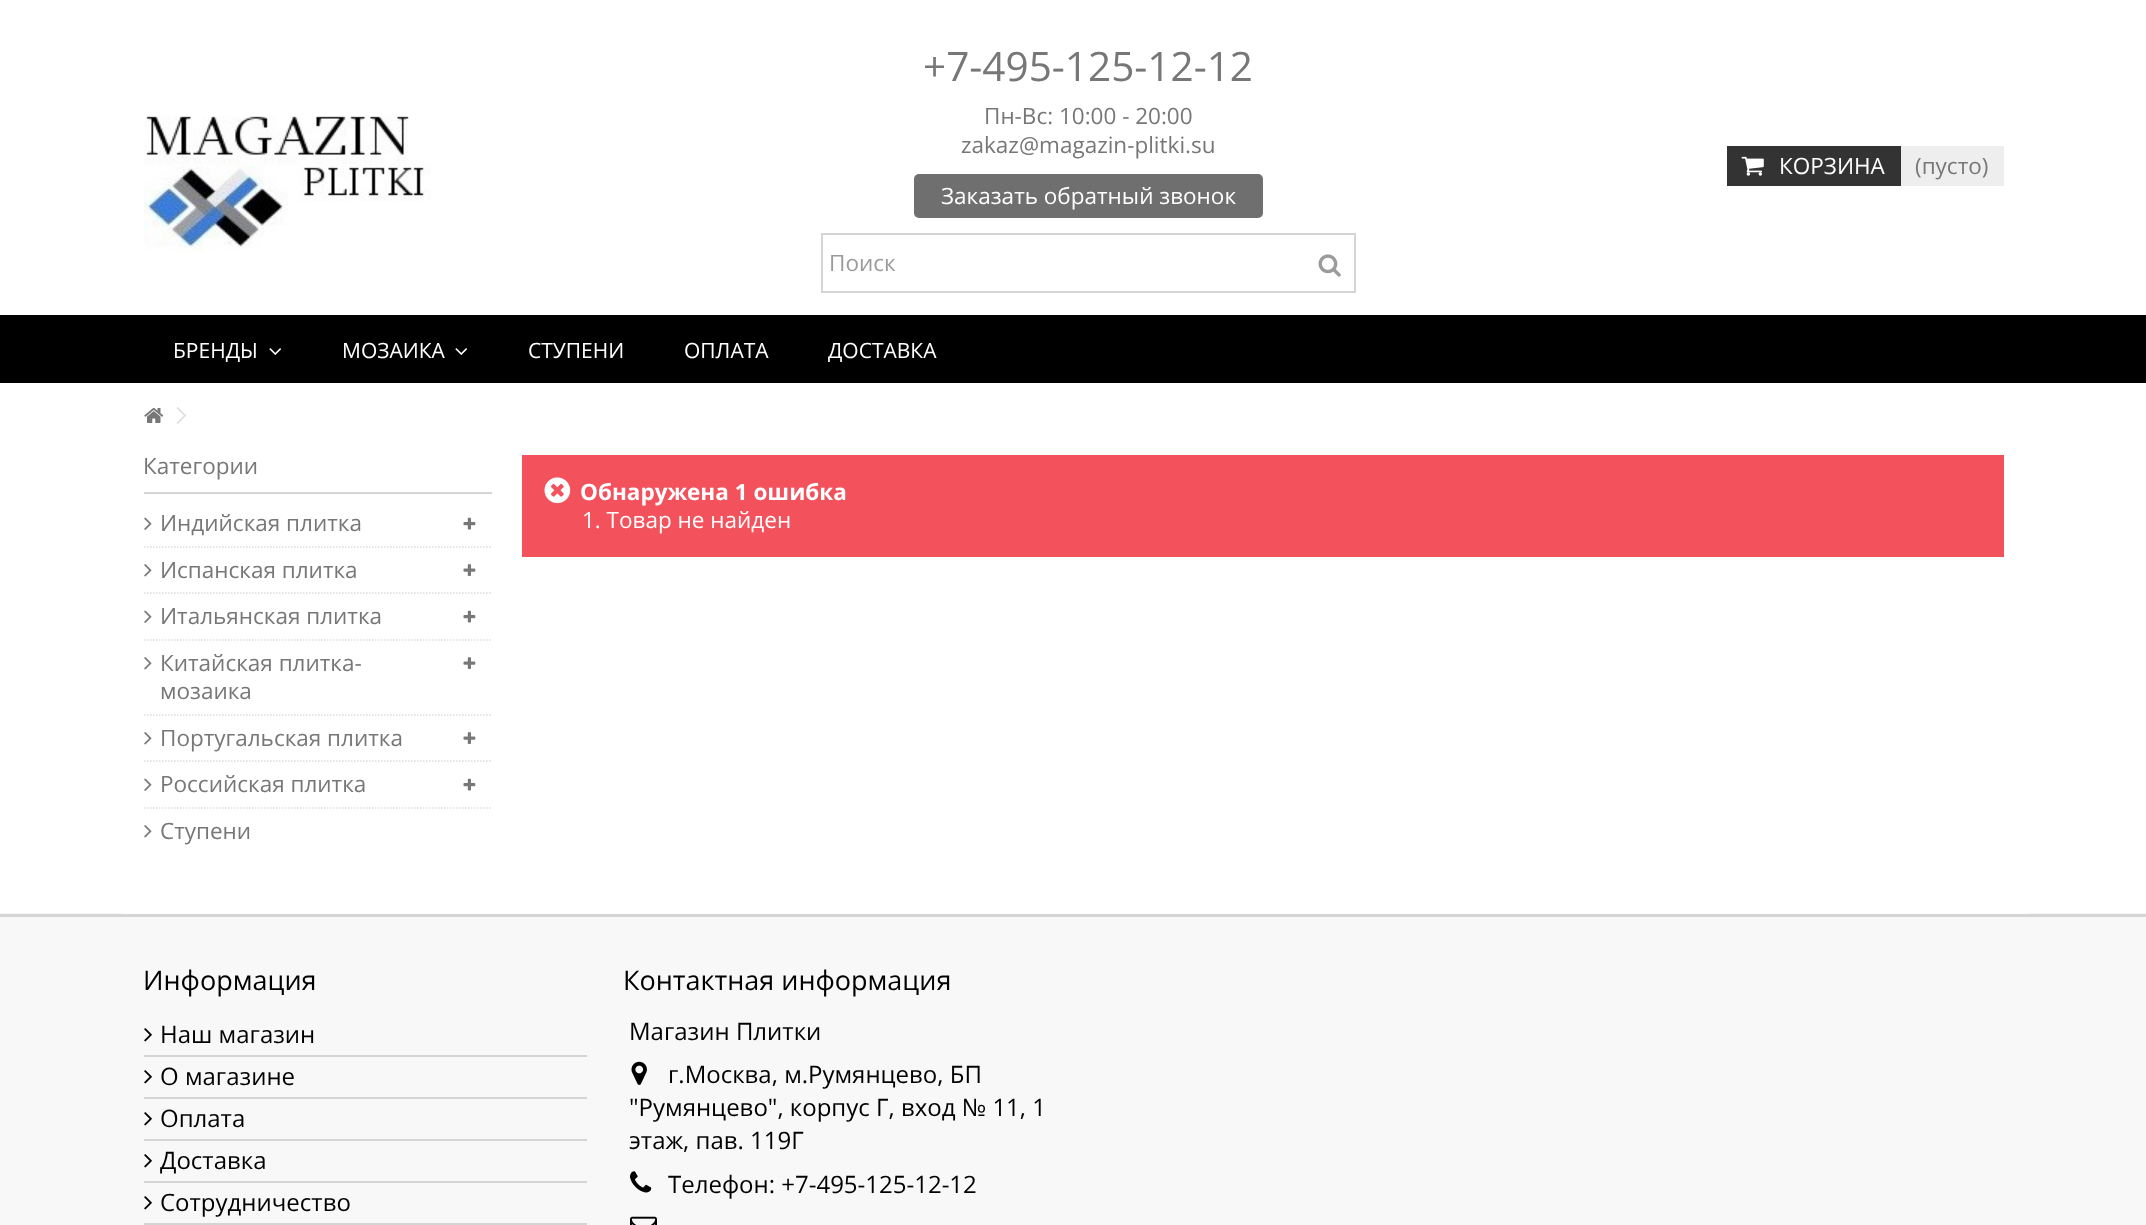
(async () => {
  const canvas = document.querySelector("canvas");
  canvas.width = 2146;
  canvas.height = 1225;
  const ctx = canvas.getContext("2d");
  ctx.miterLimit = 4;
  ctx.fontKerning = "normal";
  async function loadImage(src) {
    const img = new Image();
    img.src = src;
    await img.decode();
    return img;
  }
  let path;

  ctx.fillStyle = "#ffffff";
  ctx.fillRect(0, 0, 2146, 1225);
  ctx.drawImage(await loadImage("img/1.png"), 144, 116, 287, 136);
  ctx.fillStyle = "#6f6f6f";
  ctx.beginPath();
  ctx.roundRect(914, 174, 349, 44, 5);
  ctx.fill();
  ctx.strokeStyle = "#d6d4d4";
  ctx.lineWidth = 2;
  ctx.strokeRect(822, 234, 533, 58);
  ctx.drawImage(await loadImage("img/2.png"), 1318, 254, 23, 23);
  ctx.fillStyle = "#333333";
  ctx.fillRect(1727, 146, 174, 40);
  ctx.drawImage(await loadImage("img/3.png"), 1741, 156, 23, 20);
  ctx.fillStyle = "#eeeeee";
  ctx.fillRect(1901, 146, 103, 40);
  ctx.fillStyle = "#000000";
  ctx.fillRect(0, 315, 2146, 68);
  ctx.drawImage(await loadImage("img/4.png"), 269, 348, 12, 7);
  ctx.drawImage(await loadImage("img/4.png"), 455, 348, 12, 7);
  ctx.drawImage(await loadImage("img/11.png"), 0, 913, 2146, 1);
  ctx.fillStyle = "#ffffff";
  ctx.fillRect(122, 913, 1905, 1);
  ctx.drawImage(await loadImage("img/5.png"), 144, 408, 20, 15);
  ctx.fillStyle = "#dddddd";
  path = new Path2D("M178 407L186 415.5L185 416.5L176.5 408Z");
  ctx.fill(path);
  path = new Path2D("M185 414.5L186 415.5L178 424L176.5 423Z");
  ctx.fill(path);
  ctx.fillStyle = "#d6d4d4";
  ctx.fillRect(144, 492, 348, 2);
  ctx.drawImage(await loadImage("img/6.png"), 144, 517, 8, 13);
  ctx.drawImage(await loadImage("img/7.png"), 463, 517, 13, 13);
  path = new Path2D("M144 547H492");
  ctx.strokeStyle = "#dddddd";
  ctx.lineWidth = 1.5;
  ctx.setLineDash([1.5, 1.5]);
  ctx.stroke(path);
  ctx.drawImage(await loadImage("img/8.png"), 144, 564, 8, 13);
  ctx.drawImage(await loadImage("img/9.png"), 463, 564, 13, 12);
  path = new Path2D("M144 593H492");
  ctx.stroke(path);
  ctx.drawImage(await loadImage("img/6.png"), 144, 610, 8, 13);
  ctx.drawImage(await loadImage("img/7.png"), 463, 610, 13, 13);
  path = new Path2D("M144 640H492");
  ctx.stroke(path);
  ctx.drawImage(await loadImage("img/8.png"), 144, 657, 8, 13);
  ctx.drawImage(await loadImage("img/9.png"), 463, 657, 13, 12);
  path = new Path2D("M144 715H492");
  ctx.stroke(path);
  ctx.drawImage(await loadImage("img/8.png"), 144, 732, 8, 13);
  ctx.drawImage(await loadImage("img/9.png"), 463, 732, 13, 12);
  path = new Path2D("M144 761H492");
  ctx.stroke(path);
  ctx.drawImage(await loadImage("img/6.png"), 144, 778, 8, 13);
  ctx.drawImage(await loadImage("img/7.png"), 463, 778, 13, 13);
  path = new Path2D("M144 808H492");
  ctx.stroke(path);
  ctx.drawImage(await loadImage("img/8.png"), 144, 825, 8, 13);
  ctx.fillStyle = "#f3515c";
  ctx.fillRect(522, 455, 1482, 102);
  ctx.drawImage(await loadImage("img/10.png"), 544, 477, 27, 27);
  ctx.fillStyle = "#d6d4d4";
  ctx.fillRect(0, 914, 2146, 3);
  ctx.fillStyle = "#f8f8f8";
  ctx.fillRect(0, 917, 2146, 308);
  ctx.drawImage(await loadImage("img/12.png"), 144, 1028, 8, 14);
  ctx.fillStyle = "#d6d4d4";
  ctx.fillRect(144, 1055, 443, 2);
  ctx.drawImage(await loadImage("img/12.png"), 144, 1070, 8, 14);
  ctx.fillRect(144, 1097, 443, 2);
  ctx.drawImage(await loadImage("img/12.png"), 144, 1112, 8, 14);
  ctx.fillRect(144, 1139, 443, 2);
  ctx.drawImage(await loadImage("img/12.png"), 144, 1154, 8, 14);
  ctx.fillRect(144, 1181, 443, 2);
  ctx.drawImage(await loadImage("img/12.png"), 144, 1196, 8, 14);
  ctx.fillRect(144, 1223, 443, 2);
  ctx.drawImage(await loadImage("img/13.png"), 631, 1061, 16, 24);
  ctx.drawImage(await loadImage("img/14.png"), 630, 1171, 22, 22);
  ctx.drawImage(await loadImage("img/15.png"), 630, 1216, 27, 9);
  ctx.font = "40.5px Open Sans";
  ctx.fillStyle = "#777777";
  ctx.fillText("+7-495-125-12-12", 923, 81);
  ctx.font = "22.5px Open Sans";
  ctx.fillText("Пн-Вс: 10:00 - 20:00", 984, 124);
  ctx.fillText("zakaz@magazin-plitki.su", 961, 153);
  ctx.fillStyle = "#ffffff";
  ctx.fillText("Заказать обратный звонок", 941, 204);
  ctx.fillStyle = "#9c9b9b";
  ctx.fillText("Поиск", 829, 271);
  ctx.fillStyle = "#ffffff";
  ctx.fillText("КОРЗИНА", 1779, 174);
  ctx.fillStyle = "#777777";
  ctx.fillText("(пусто)", 1915, 174);
  ctx.font = "21px Open Sans";
  ctx.fillStyle = "#ffffff";
  for (const [text, x, y] of [
    ["БРЕНДЫ", 173, 358],
    ["МОЗАИКА", 342, 358],
    ["СТУПЕНИ", 528, 358],
    ["ОПЛАТА", 684, 358],
    ["ДОСТАВКА", 828, 358],
  ]) {
    ctx.fillText(text, x, y);
  }
  ctx.font = "22.5px Open Sans";
  ctx.fillStyle = "#777777";
  for (const [text, x, y] of [
    ["Категории", 143, 474],
    ["Индийская плитка", 160, 531],
    ["Испанская плитка", 160, 578],
    ["Итальянская плитка", 160, 624],
    ["Китайская плитка-", 160, 671],
    ["мозаика", 160, 699],
    ["Португальская плитка", 160, 746],
    ["Российская плитка", 160, 792],
    ["Ступени", 160, 839],
  ]) {
    ctx.fillText(text, x, y);
  }
  ctx.font = "bold 22.5px Open Sans";
  ctx.fillStyle = "#ffffff";
  ctx.fillText("Обнаружена 1 ошибка", 580, 500);
  ctx.font = "22.5px Open Sans";
  ctx.fillText("1. Товар не найден", 582, 528);
  ctx.font = "27px Open Sans";
  ctx.fillStyle = "#000000";
  ctx.fillText("Информация", 143, 990);
  ctx.font = "24px Open Sans";
  for (const [text, x, y] of [
    ["Наш магазин", 160, 1043],
    ["О магазине", 160, 1085],
    ["Оплата", 160, 1127],
    ["Доставка", 160, 1169],
    ["Сотрудничество", 160, 1211],
  ]) {
    ctx.fillText(text, x, y);
  }
  ctx.font = "27px Open Sans";
  ctx.fillText("Контактная информация", 623, 990);
  ctx.font = "24px Open Sans";
  for (const [text, x, y] of [
    ["Магазин Плитки", 629, 1040],
    ["г.Москва, м.Румянцево, БП", 668, 1083],
    ["\"Румянцево\", корпус Г, вход № 11, 1", 629, 1116],
    ["этаж, пав. 119Г", 629, 1149],
    ["Телефон: +7-495-125-12-12", 668, 1193],
  ]) {
    ctx.fillText(text, x, y);
  }
})();
